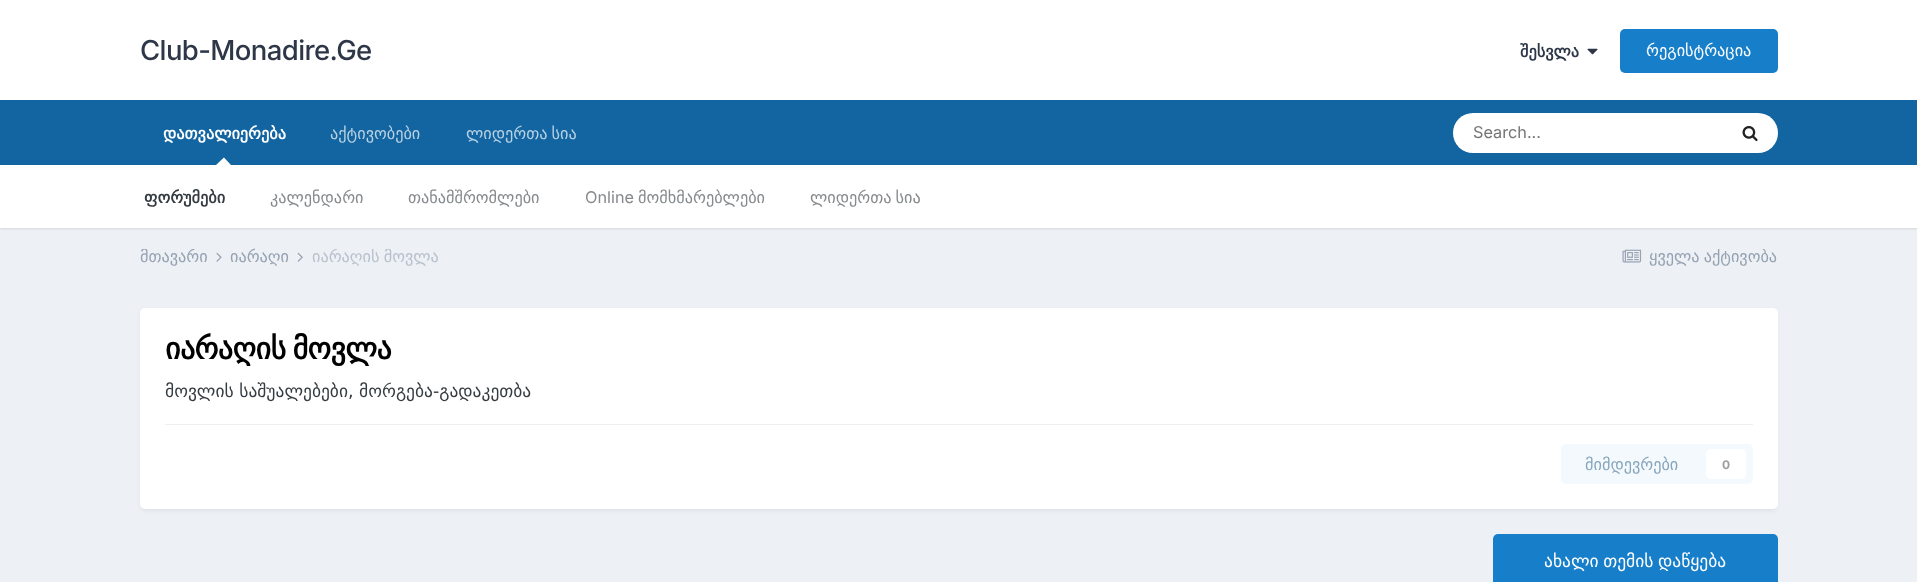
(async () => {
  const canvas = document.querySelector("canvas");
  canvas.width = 1917;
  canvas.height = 582;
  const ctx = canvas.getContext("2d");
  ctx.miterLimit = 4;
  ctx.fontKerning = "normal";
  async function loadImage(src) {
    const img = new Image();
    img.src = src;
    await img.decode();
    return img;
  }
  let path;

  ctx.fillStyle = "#edf0f4";
  ctx.fillRect(0, 0, 1917, 582);
  ctx.fillStyle = "#ffffff";
  ctx.fillRect(0, 0, 1917, 100);
  ctx.drawImage(await loadImage("img/1.png"), 1587, 48, 11, 7);
  ctx.fillStyle = "#177ec9";
  ctx.beginPath();
  ctx.roundRect(1620, 29, 158, 44, 5);
  ctx.fill();
  ctx.fillStyle = "#1265a1";
  ctx.fillRect(0, 100, 1917, 65);
  ctx.fillStyle = "rgba(0, 0, 0, 0.1)";
  ctx.filter = "blur(1px)";
  ctx.beginPath();
  ctx.rect(0, 166, 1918, 63);
  ctx.fill();
  ctx.filter = "none";
  ctx.fillStyle = "#ffffff";
  path = new Path2D("M231 165H216L224 157.5Z");
  ctx.fill(path);
  ctx.beginPath();
  ctx.roundRect(1453, 113, 325, 40, 20);
  ctx.fill();
  ctx.drawImage(await loadImage("img/2.png"), 1742, 126, 16, 16);
  ctx.fillRect(0, 165, 1917, 63);
  ctx.drawImage(await loadImage("img/3.png"), 216, 252, 6, 10);
  ctx.drawImage(await loadImage("img/4.png"), 297, 252, 6, 10);
  ctx.drawImage(await loadImage("img/5.png"), 1622, 249, 20, 14);
  ctx.fillStyle = "rgba(45, 55, 72, 0.1)";
  ctx.filter = "blur(2.5px)";
  ctx.beginPath();
  ctx.roundRect(141, 311, 1635, 199, 4);
  ctx.fill();
  ctx.filter = "none";
  ctx.fillStyle = "#ffffff";
  ctx.beginPath();
  ctx.roundRect(140, 308, 1638, 201, 5);
  ctx.fill();
  ctx.fillStyle = "#efeff0";
  ctx.fillRect(165, 424, 1588, 1);
  ctx.fillStyle = "#f4f9fd";
  ctx.beginPath();
  ctx.roundRect(1561, 444, 192, 40, 5);
  ctx.fill();
  ctx.fillStyle = "#ffffff";
  ctx.beginPath();
  ctx.roundRect(1706, 449, 40, 30, 5);
  ctx.fill();
  ctx.fillStyle = "#177ec9";
  ctx.beginPath();
  ctx.roundRect(1493, 534, 285, 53, 5);
  ctx.fill();
  ctx.letterSpacing = "-0.6px";
  ctx.font = "500 27.5px Inter";
  ctx.fillStyle = "#2d3748";
  ctx.fillText("Club-Monadire.Ge", 140, 60);
  ctx.letterSpacing = "0px";
  ctx.font = "bold 16.25px DejaVu Sans";
  ctx.fillText("შესვლა", 1520, 57);
  ctx.font = "16.25px DejaVu Sans";
  ctx.fillStyle = "#ffffff";
  ctx.fillText("რეგისტრაცია", 1646, 56);
  ctx.font = "bold 16.25px DejaVu Sans";
  ctx.fillText("დათვალიერება", 163, 139);
  ctx.fillStyle = "#353c41";
  ctx.fillText("ფორუმები", 144, 203);
  ctx.font = "16.25px DejaVu Sans";
  ctx.fillStyle = "#868a8d";
  ctx.fillText("კალენდარი", 270, 203);
  ctx.fillText("თანამშრომლები", 408, 203);
  ctx.font = "16.25px Inter";
  ctx.fillText("Online", 585, 203);
  ctx.font = "16.25px DejaVu Sans";
  ctx.fillText("მომხმარებლები", 638, 203);
  ctx.wordSpacing = "-1px";
  ctx.fillText("ლიდერთა სია", 810, 203);
  ctx.wordSpacing = "0px";
  ctx.fillStyle = "#b8d1e3";
  ctx.fillText("აქტივობები", 330, 139);
  ctx.wordSpacing = "-1px";
  ctx.fillText("ლიდერთა სია", 466, 139);
  ctx.wordSpacing = "0px";
  ctx.font = "16.25px Inter";
  ctx.fillStyle = "#757575";
  ctx.fillText("Search...", 1473, 138);
  ctx.save();
  ctx.beginPath();
  ctx.rect(140, 249, 85, 19);
  ctx.clip();
  ctx.font = "16.25px DejaVu Sans";
  ctx.fillStyle = "#96a2b2";
  ctx.fillText("მთავარი", 140, 262);
  ctx.restore();
  ctx.font = "16.25px DejaVu Sans";
  ctx.fillStyle = "#96a2b2";
  ctx.fillText("იარაღი", 230, 262);
  ctx.save();
  ctx.beginPath();
  ctx.rect(311, 249, 128, 19);
  ctx.clip();
  ctx.wordSpacing = "-1px";
  ctx.fillStyle = "#b9c1cd";
  ctx.fillText("იარაღის მოვლა", 312, 262);
  ctx.restore();
  ctx.save();
  ctx.beginPath();
  ctx.rect(1619, 249, 159, 19);
  ctx.clip();
  ctx.wordSpacing = "-1px";
  ctx.fillText("ყველა აქტივობა", 1649, 262);
  ctx.restore();
  ctx.letterSpacing = "-0.6px";
  ctx.wordSpacing = "-2px";
  ctx.font = "bold 30px DejaVu Sans";
  ctx.fillStyle = "#000000";
  ctx.fillText("იარაღის მოვლა", 165, 359);
  ctx.letterSpacing = "0px";
  ctx.wordSpacing = "0px";
  ctx.font = "17.5px DejaVu Sans";
  ctx.fillStyle = "#353c41";
  ctx.fillText("მოვლის საშუალებები, მორგება-გადაკეთბა", 165, 397);
  ctx.font = "16.25px DejaVu Sans";
  ctx.fillStyle = "#87a6bc";
  ctx.fillText("მიმდევრები", 1585, 470);
  ctx.font = "bold 12px Inter";
  ctx.fillStyle = "#9a9ea0";
  ctx.fillText("0", 1722, 469);
  ctx.wordSpacing = "-1px";
  ctx.font = "17.5px DejaVu Sans";
  ctx.fillStyle = "#ffffff";
  ctx.fillText("ახალი თემის დაწყება", 1544, 567);
})();
